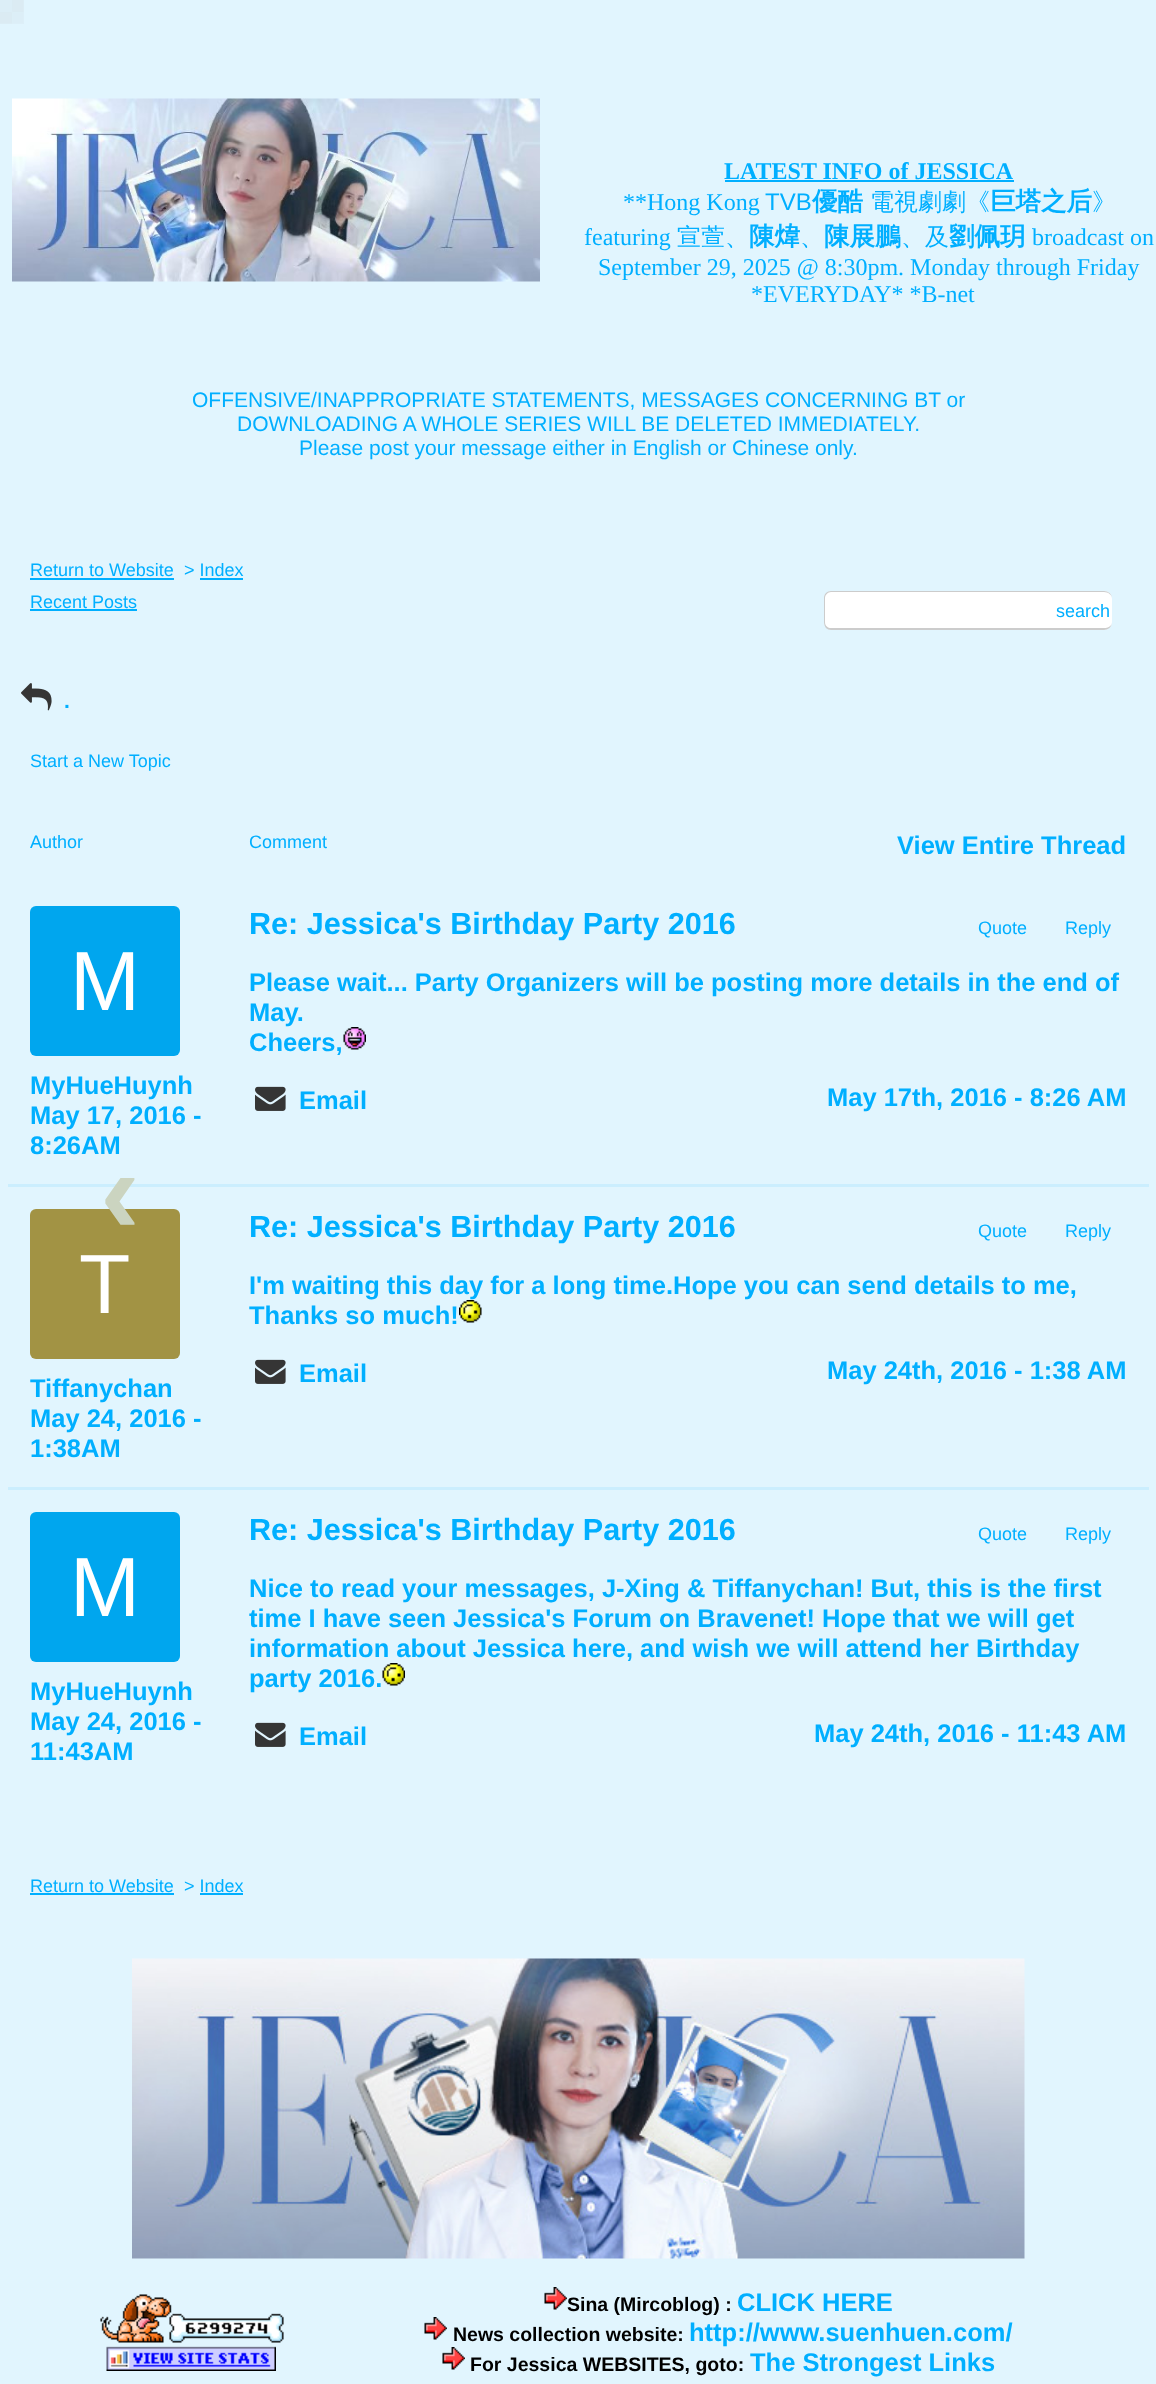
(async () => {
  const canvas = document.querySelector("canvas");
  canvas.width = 1156;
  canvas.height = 2384;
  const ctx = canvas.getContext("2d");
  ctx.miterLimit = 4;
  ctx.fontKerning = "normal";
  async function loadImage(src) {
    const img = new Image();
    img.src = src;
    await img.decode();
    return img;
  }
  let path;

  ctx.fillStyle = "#e1f5fe";
  ctx.fillRect(0, 0, 1156, 2384);
  ctx.drawImage(await loadImage("img/1.png"), 0, 0, 24, 24);
  ctx.drawImage(await loadImage("img/2.png"), 12, 98, 528, 184);
  for (const [x, y, w, h, color] of [
    [725, 180, 289, 2, "#00afff"],
    [30, 578, 144, 2, "#00afff"],
    [200, 578, 43, 2, "#00afff"],
    [30, 609, 107, 2, "#00afff"],
  ]) {
    ctx.fillStyle = color;
    ctx.fillRect(x, y, w, h);
  }
  ctx.fillStyle = "#ffffff";
  ctx.beginPath();
  ctx.roundRect(824, 591, 288, 39, 8);
  ctx.fill();
  ctx.fillStyle = "#cccccc";
  path = new Path2D("M831 591H1104C1108 591 1112 594 1112 598V622C1112 627 1108 630 1104 630H831C827 630 824 627 824 622V598C824 594 827 591 831 591ZM831 592H1104C1108 592 1112 595 1112 598V622C1112 626 1108 628 1104 628H831C828 628 825 626 825 622V598C825 595 828 592 831 592Z");
  ctx.fill(path, "evenodd");
  ctx.drawImage(await loadImage("img/3.png"), 21, 683, 31, 28);
  ctx.fillStyle = "#cbeefe";
  ctx.fillRect(8, 1184, 1141, 3);
  ctx.fillStyle = "#00a6ee";
  ctx.beginPath();
  ctx.roundRect(30, 906, 150, 150, 6);
  ctx.fill();
  ctx.drawImage(await loadImage("img/4.png"), 343, 1027, 23, 23);
  ctx.drawImage(await loadImage("img/5.png"), 255, 1086, 31, 25);
  ctx.fillStyle = "#cbeefe";
  ctx.fillRect(8, 1487, 1141, 3);
  ctx.fillStyle = "#a29344";
  ctx.beginPath();
  ctx.roundRect(30, 1209, 150, 150, 6);
  ctx.fill();
  ctx.drawImage(await loadImage("img/6.png"), 459, 1300, 23, 23);
  ctx.drawImage(await loadImage("img/5.png"), 255, 1359, 31, 25);
  ctx.fillStyle = "#00a6ee";
  ctx.beginPath();
  ctx.roundRect(30, 1512, 150, 150, 6);
  ctx.fill();
  ctx.drawImage(await loadImage("img/7.png"), 382, 1663, 23, 23);
  ctx.drawImage(await loadImage("img/5.png"), 255, 1722, 31, 25);
  ctx.fillStyle = "#00afff";
  ctx.fillRect(30, 1893, 144, 2);
  ctx.fillRect(200, 1893, 43, 2);
  ctx.drawImage(await loadImage("img/8.png"), 132, 1958, 893, 301);
  ctx.drawImage(await loadImage("img/9.png"), 100, 2294, 184, 49);
  ctx.drawImage(await loadImage("img/10.png"), 106, 2346, 170, 25);
  ctx.drawImage(await loadImage("img/11.png"), 544, 2287, 23, 23);
  ctx.drawImage(await loadImage("img/11.png"), 424, 2317, 23, 23);
  ctx.drawImage(await loadImage("img/11.png"), 442, 2347, 23, 23);
  ctx.font = "bold 24px Liberation Serif";
  ctx.fillText("LATEST INFO of JESSICA", 724, 179);
  ctx.font = "24px Liberation Serif";
  ctx.fillText("**Hong Kong", 623, 210);
  ctx.font = "24px Liberation Sans";
  ctx.fillText("TVB", 765, 210);
  ctx.font = "bold 25.5px WenQuanYi Zen Hei";
  ctx.fillText("優酷", 812, 210);
  ctx.font = "500 24px WenQuanYi Zen Hei";
  ctx.fillText("電視劇劇《", 870, 210);
  ctx.font = "bold 25.5px WenQuanYi Zen Hei";
  ctx.fillText("巨塔之后", 990, 210);
  ctx.font = "500 24px WenQuanYi Zen Hei";
  ctx.fillText("》", 1092, 210);
  ctx.font = "24px Liberation Serif";
  ctx.fillText("featuring", 584, 245);
  ctx.font = "500 24px WenQuanYi Zen Hei";
  ctx.fillText("宣萱、", 677, 245);
  ctx.font = "bold 25.5px WenQuanYi Zen Hei";
  ctx.fillText("陳煒", 749, 245);
  ctx.font = "500 24px WenQuanYi Zen Hei";
  ctx.fillText("、", 800, 245);
  ctx.font = "bold 25.5px WenQuanYi Zen Hei";
  ctx.fillText("陳展鵬", 824, 245);
  ctx.font = "500 24px WenQuanYi Zen Hei";
  ctx.fillText("、及", 901, 245);
  ctx.font = "bold 25.5px WenQuanYi Zen Hei";
  ctx.fillText("劉佩玥", 949, 245);
  ctx.font = "24px Liberation Serif";
  for (const [text, x, y] of [
    ["broadcast on", 1032, 245],
    ["September 29, 2025 @ 8:30pm. Monday through Friday", 598, 275],
    ["*EVERYDAY* *B-net", 751, 302],
  ]) {
    ctx.fillText(text, x, y);
  }
  ctx.font = "21px Liberation Sans";
  for (const [text, x, y] of [
    ["OFFENSIVE/INAPPROPRIATE STATEMENTS, MESSAGES CONCERNING BT or", 192, 407],
    ["DOWNLOADING A WHOLE SERIES WILL BE DELETED IMMEDIATELY.", 237, 431],
    ["Please post your message either in English or Chinese only.", 299, 455],
  ]) {
    ctx.fillText(text, x, y);
  }
  ctx.font = "18px Liberation Sans";
  for (const [text, x, y] of [
    ["Return to Website", 30, 576],
    ["> Index", 184, 576],
    ["Recent Posts", 30, 608],
    ["search", 1056, 617],
  ]) {
    ctx.fillText(text, x, y);
  }
  ctx.font = "bold 21px Liberation Sans";
  ctx.fillText(".", 64, 708);
  ctx.font = "18px Liberation Sans";
  for (const [text, x, y] of [
    ["Start a New Topic", 30, 767],
    ["Author", 30, 848],
    ["Comment", 249, 848],
  ]) {
    ctx.fillText(text, x, y);
  }
  ctx.font = "bold 25.5px Liberation Sans";
  ctx.fillText("View Entire Thread", 897, 854);
  ctx.font = "84px Liberation Sans";
  ctx.fillStyle = "#ffffff";
  ctx.fillText("M", 70, 1010);
  ctx.font = "bold 25.5px Liberation Sans";
  ctx.fillStyle = "#00afff";
  for (const [text, x, y] of [
    ["MyHueHuynh", 30, 1094],
    ["May 17, 2016 -", 30, 1124],
    ["8:26AM", 30, 1154],
  ]) {
    ctx.fillText(text, x, y);
  }
  ctx.font = "bold 30.6px Liberation Sans";
  ctx.fillText("Re: Jessica's Birthday Party 2016", 249, 934);
  ctx.font = "18px Liberation Sans";
  ctx.fillText("Quote", 978, 934);
  ctx.fillText("Reply", 1065, 934);
  ctx.font = "bold 25.5px Liberation Sans";
  for (const [text, x, y] of [
    ["Please wait... Party Organizers will be posting more details in the end of", 249, 991],
    ["May.", 249, 1021],
    ["Cheers,", 249, 1051],
    ["Email", 299, 1109],
    ["May 17th, 2016 - 8:26 AM", 827, 1106],
  ]) {
    ctx.fillText(text, x, y);
  }
  ctx.font = "bold 120px Liberation Sans";
  ctx.fillStyle = "#cbd4c0";
  ctx.fillText("‹", 100, 1233);
  ctx.font = "84px Liberation Sans";
  ctx.fillStyle = "#ffffff";
  ctx.fillText("T", 79, 1313);
  ctx.font = "bold 25.5px Liberation Sans";
  ctx.fillStyle = "#00afff";
  for (const [text, x, y] of [
    ["Tiffanychan", 30, 1397],
    ["May 24, 2016 -", 30, 1427],
    ["1:38AM", 30, 1457],
  ]) {
    ctx.fillText(text, x, y);
  }
  ctx.font = "bold 30.6px Liberation Sans";
  ctx.fillText("Re: Jessica's Birthday Party 2016", 249, 1237);
  ctx.font = "18px Liberation Sans";
  ctx.fillText("Quote", 978, 1237);
  ctx.fillText("Reply", 1065, 1237);
  ctx.font = "bold 25.5px Liberation Sans";
  for (const [text, x, y] of [
    ["I'm waiting this day for a long time.Hope you can send details to me,", 249, 1294],
    ["Thanks so much!", 249, 1324],
    ["Email", 299, 1382],
    ["May 24th, 2016 - 1:38 AM", 827, 1379],
  ]) {
    ctx.fillText(text, x, y);
  }
  ctx.font = "84px Liberation Sans";
  ctx.fillStyle = "#ffffff";
  ctx.fillText("M", 70, 1616);
  ctx.font = "bold 25.5px Liberation Sans";
  ctx.fillStyle = "#00afff";
  for (const [text, x, y] of [
    ["MyHueHuynh", 30, 1700],
    ["May 24, 2016 -", 30, 1730],
    ["11:43AM", 30, 1760],
  ]) {
    ctx.fillText(text, x, y);
  }
  ctx.font = "bold 30.6px Liberation Sans";
  ctx.fillText("Re: Jessica's Birthday Party 2016", 249, 1540);
  ctx.font = "18px Liberation Sans";
  ctx.fillText("Quote", 978, 1540);
  ctx.fillText("Reply", 1065, 1540);
  ctx.font = "bold 25.5px Liberation Sans";
  for (const [text, x, y] of [
    ["Nice to read your messages, J-Xing & Tiffanychan! But, this is the first", 249, 1597],
    ["time I have seen Jessica's Forum on Bravenet! Hope that we will get", 249, 1627],
    ["information about Jessica here, and wish we will attend her Birthday", 249, 1657],
    ["party 2016.", 249, 1687],
    ["Email", 299, 1745],
    ["May 24th, 2016 - 11:43 AM", 814, 1742],
  ]) {
    ctx.fillText(text, x, y);
  }
  ctx.font = "18px Liberation Sans";
  ctx.fillText("Return to Website", 30, 1892);
  ctx.fillText("> Index", 184, 1892);
  ctx.font = "bold 19.5px Liberation Sans";
  ctx.fillStyle = "#000000";
  ctx.fillText("Sina (Mircoblog) :", 567, 2311);
  ctx.font = "bold 25.5px Liberation Sans";
  ctx.fillStyle = "#00afff";
  ctx.fillText("CLICK HERE", 737, 2311);
  ctx.font = "bold 19.5px Liberation Sans";
  ctx.fillStyle = "#000000";
  ctx.fillText("News collection website:", 453, 2341);
  ctx.font = "bold 25.5px Liberation Sans";
  ctx.fillStyle = "#00afff";
  ctx.fillText("http://www.suenhuen.com/", 689, 2341);
  ctx.font = "bold 19.5px Liberation Sans";
  ctx.fillStyle = "#000000";
  ctx.fillText("For Jessica WEBSITES, goto:", 470, 2371);
  ctx.font = "bold 25.5px Liberation Sans";
  ctx.fillStyle = "#00afff";
  ctx.fillText("The Strongest Links", 750, 2371);
})();
